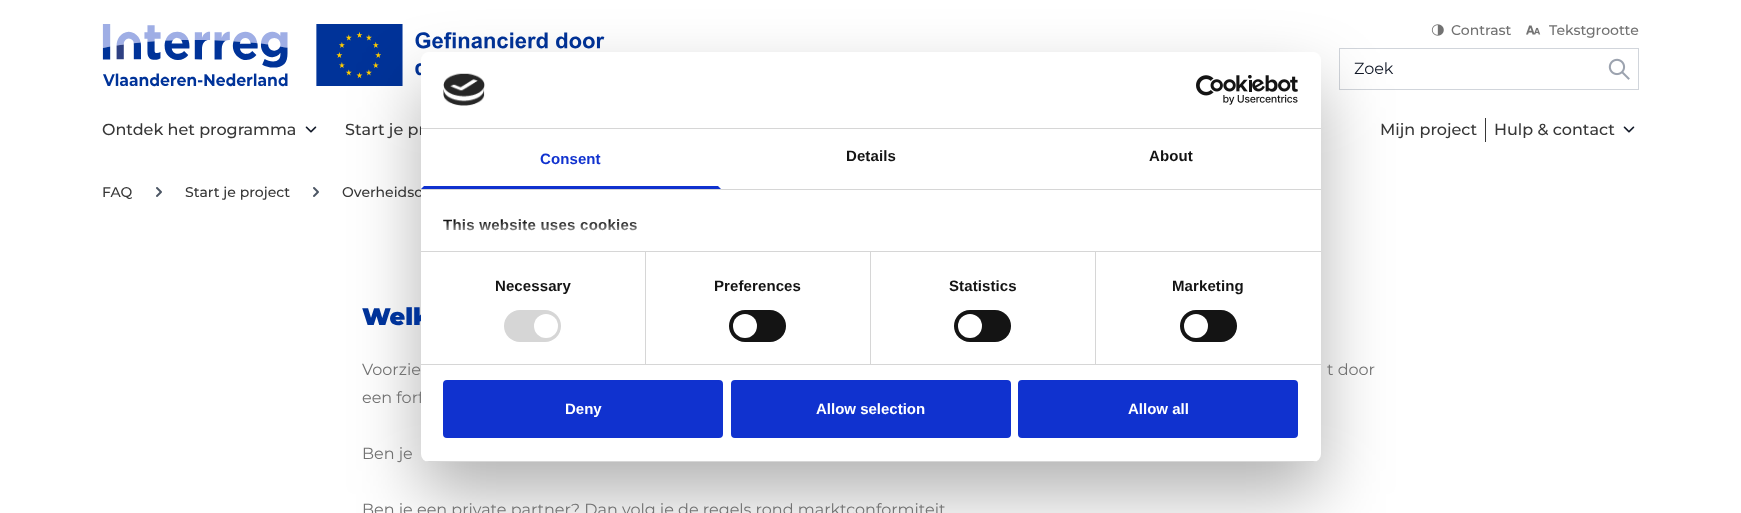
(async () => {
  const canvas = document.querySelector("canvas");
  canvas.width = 1741;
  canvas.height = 513;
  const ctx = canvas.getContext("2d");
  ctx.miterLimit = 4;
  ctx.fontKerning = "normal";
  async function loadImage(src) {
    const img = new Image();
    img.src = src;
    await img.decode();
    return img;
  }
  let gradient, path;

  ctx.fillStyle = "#ffffff";
  ctx.fillRect(0, 0, 1741, 513);
  ctx.drawImage(await loadImage("img/1.png"), 102, 24, 503, 63);
  ctx.drawImage(await loadImage("img/2.png"), 1431, 24, 13, 12);
  ctx.drawImage(await loadImage("img/3.png"), 1526, 25, 15, 10);
  ctx.strokeStyle = "#d1d5db";
  ctx.strokeRect(1339.5, 48.5, 299, 41);
  ctx.drawImage(await loadImage("img/4.png"), 1608, 58, 22, 22);
  ctx.drawImage(await loadImage("img/5.png"), 305, 126, 12, 7);
  ctx.fillStyle = "#373737";
  ctx.fillRect(1485, 118, 1, 24);
  ctx.drawImage(await loadImage("img/5.png"), 1623, 126, 12, 7);
  ctx.drawImage(await loadImage("img/8.png"), 313, 187, 6, 10);
  ctx.fillStyle = "rgba(0, 0, 0, 0.3)";
  ctx.filter = "blur(34px)";
  ctx.beginPath();
  ctx.roundRect(421, 84, 900, 410, 8);
  ctx.fill();
  ctx.filter = "none";
  ctx.drawImage(await loadImage("img/8.png"), 156, 187, 6, 10);
  ctx.font = "500 14px Montserrat";
  ctx.fillStyle = "#727272";
  ctx.fillText("Contrast", 1451, 35);
  ctx.fillText("Tekstgrootte", 1549, 35);
  ctx.font = "16px Montserrat";
  ctx.fillStyle = "#111827";
  ctx.fillText("Zoek", 1354, 74);
  ctx.font = "500 16px Montserrat";
  ctx.fillStyle = "#373737";
  for (const [text, x, y] of [
    ["Ontdek het programma", 102, 135],
    ["Start je pr", 345, 135],
    ["Mijn project", 1380, 135],
    ["Hulp & contact", 1494, 135],
  ]) {
    ctx.fillText(text, x, y);
  }
  ctx.font = "500 14px Montserrat";
  for (const [text, x, y] of [
    ["FAQ", 102, 197],
    ["Start je project", 185, 197],
    ["Overheidso", 342, 197],
  ]) {
    ctx.fillText(text, x, y);
  }
  ctx.font = "900 24px Montserrat";
  ctx.fillStyle = "#003399";
  ctx.fillText("Welk", 362, 325);
  ctx.font = "16px Montserrat";
  ctx.fillStyle = "#727272";
  for (const [text, x, y] of [
    ["Voorzie", 362, 375],
    ["t door", 1327, 375],
    ["een forf", 362, 403],
  ]) {
    ctx.fillText(text, x, y);
  }
  ctx.fillStyle = "#ffffff";
  ctx.beginPath();
  ctx.roundRect(421, 52, 900, 410, 8);
  ctx.fill();
  ctx.letterSpacing = "0.25px";
  ctx.font = "bold 15px Liberation Sans";
  ctx.fillStyle = "#141414";
  ctx.fillText("This website uses cookies", 443, 230);
  gradient = ctx.createLinearGradient(861, 251, 861, 221);
  gradient.addColorStop(0, "#ffffff");
  gradient.addColorStop(0.5, "rgba(255, 255, 255, 0.8)");
  gradient.addColorStop(1, "rgba(255, 255, 255, 0)");
  ctx.fillStyle = gradient;
  ctx.fillRect(446, 221, 191, 10);
  ctx.fillStyle = "#1032cf";
  ctx.beginPath();
  ctx.roundRect(1019, 381, 278, 56, 3);
  ctx.fill();
  ctx.strokeStyle = "#1032cf";
  ctx.lineWidth = 2;
  ctx.stroke();
  ctx.letterSpacing = "0px";
  ctx.fillStyle = "#ffffff";
  ctx.fillText("Allow all", 1128, 414);
  ctx.fillStyle = "#1032cf";
  ctx.beginPath();
  ctx.roundRect(732, 381, 278, 56, 3);
  ctx.fill();
  ctx.stroke();
  ctx.fillStyle = "#ffffff";
  ctx.fillText("Allow selection", 816, 414);
  ctx.fillStyle = "#1032cf";
  ctx.beginPath();
  ctx.roundRect(444, 381, 278, 56, 3);
  ctx.fill();
  ctx.stroke();
  ctx.fillStyle = "#ffffff";
  ctx.fillText("Deny", 565, 414);
  ctx.save();
  ctx.beginPath();
  ctx.roundRect(421, 52, 900, 410, 8);
  ctx.clip();
  ctx.fillStyle = "#d6d6d6";
  ctx.fillRect(421, 461, 900, 1);
  ctx.restore();
  ctx.fillStyle = "#141414";
  ctx.beginPath();
  ctx.roundRect(1180, 310, 57, 32, 16);
  ctx.fill();
  ctx.fillStyle = "#ffffff";
  ctx.beginPath();
  ctx.arc(1196, 326, 12, 0, Math.PI * 2);
  ctx.fill();
  ctx.fillStyle = "#141414";
  ctx.beginPath();
  ctx.roundRect(954, 310, 57, 32, 16);
  ctx.fill();
  ctx.fillStyle = "#ffffff";
  ctx.beginPath();
  ctx.arc(970, 326, 12, 0, Math.PI * 2);
  ctx.fill();
  ctx.fillStyle = "#141414";
  ctx.beginPath();
  ctx.roundRect(729, 310, 57, 32, 16);
  ctx.fill();
  ctx.fillStyle = "#ffffff";
  ctx.beginPath();
  ctx.arc(745, 326, 12, 0, Math.PI * 2);
  ctx.fill();
  ctx.fillStyle = "#d6d6d6";
  ctx.beginPath();
  ctx.roundRect(504, 310, 57, 32, 16);
  ctx.fill();
  ctx.fillStyle = "#ffffff";
  ctx.beginPath();
  ctx.arc(546, 326, 12, 0, Math.PI * 2);
  ctx.fill();
  ctx.fillStyle = "#d6d6d6";
  ctx.fillRect(421, 251, 900, 1);
  ctx.letterSpacing = "0.1px";
  ctx.fillStyle = "#141414";
  ctx.fillText("About", 1149, 161);
  ctx.fillText("Details", 846, 161);
  ctx.fillStyle = "#1032cf";
  ctx.fillText("Consent", 540, 164);
  path = new Path2D("M721 189H421L424 186H718Z");
  ctx.fill(path);
  ctx.fillStyle = "#d6d6d6";
  ctx.fillRect(421, 189, 900, 1);
  ctx.fillStyle = "#141414";
  ctx.fillText("Marketing", 1172, 291);
  ctx.fillText("Statistics", 949, 291);
  ctx.fillStyle = "#d6d6d6";
  ctx.fillRect(1095, 252, 1, 112);
  ctx.fillStyle = "#141414";
  ctx.fillText("Preferences", 714, 291);
  ctx.fillStyle = "#d6d6d6";
  ctx.fillRect(870, 252, 1, 112);
  ctx.fillStyle = "#141414";
  ctx.fillText("Necessary", 495, 291);
  ctx.fillStyle = "#d6d6d6";
  ctx.fillRect(645, 252, 1, 112);
  ctx.fillRect(421, 364, 900, 1);
  ctx.drawImage(await loadImage("img/7.png"), 1196, 75, 102, 30);
  ctx.drawImage(await loadImage("img/6.png"), 443, 73, 42, 33);
  ctx.fillRect(421, 128, 900, 1);
  ctx.letterSpacing = "0px";
  ctx.font = "16px Montserrat";
  ctx.fillStyle = "#727272";
  ctx.fillText("Ben je", 362, 459);
  ctx.fillText("Ben je een private partner? Dan volg je de regels rond marktconformiteit", 362, 515);
})();
